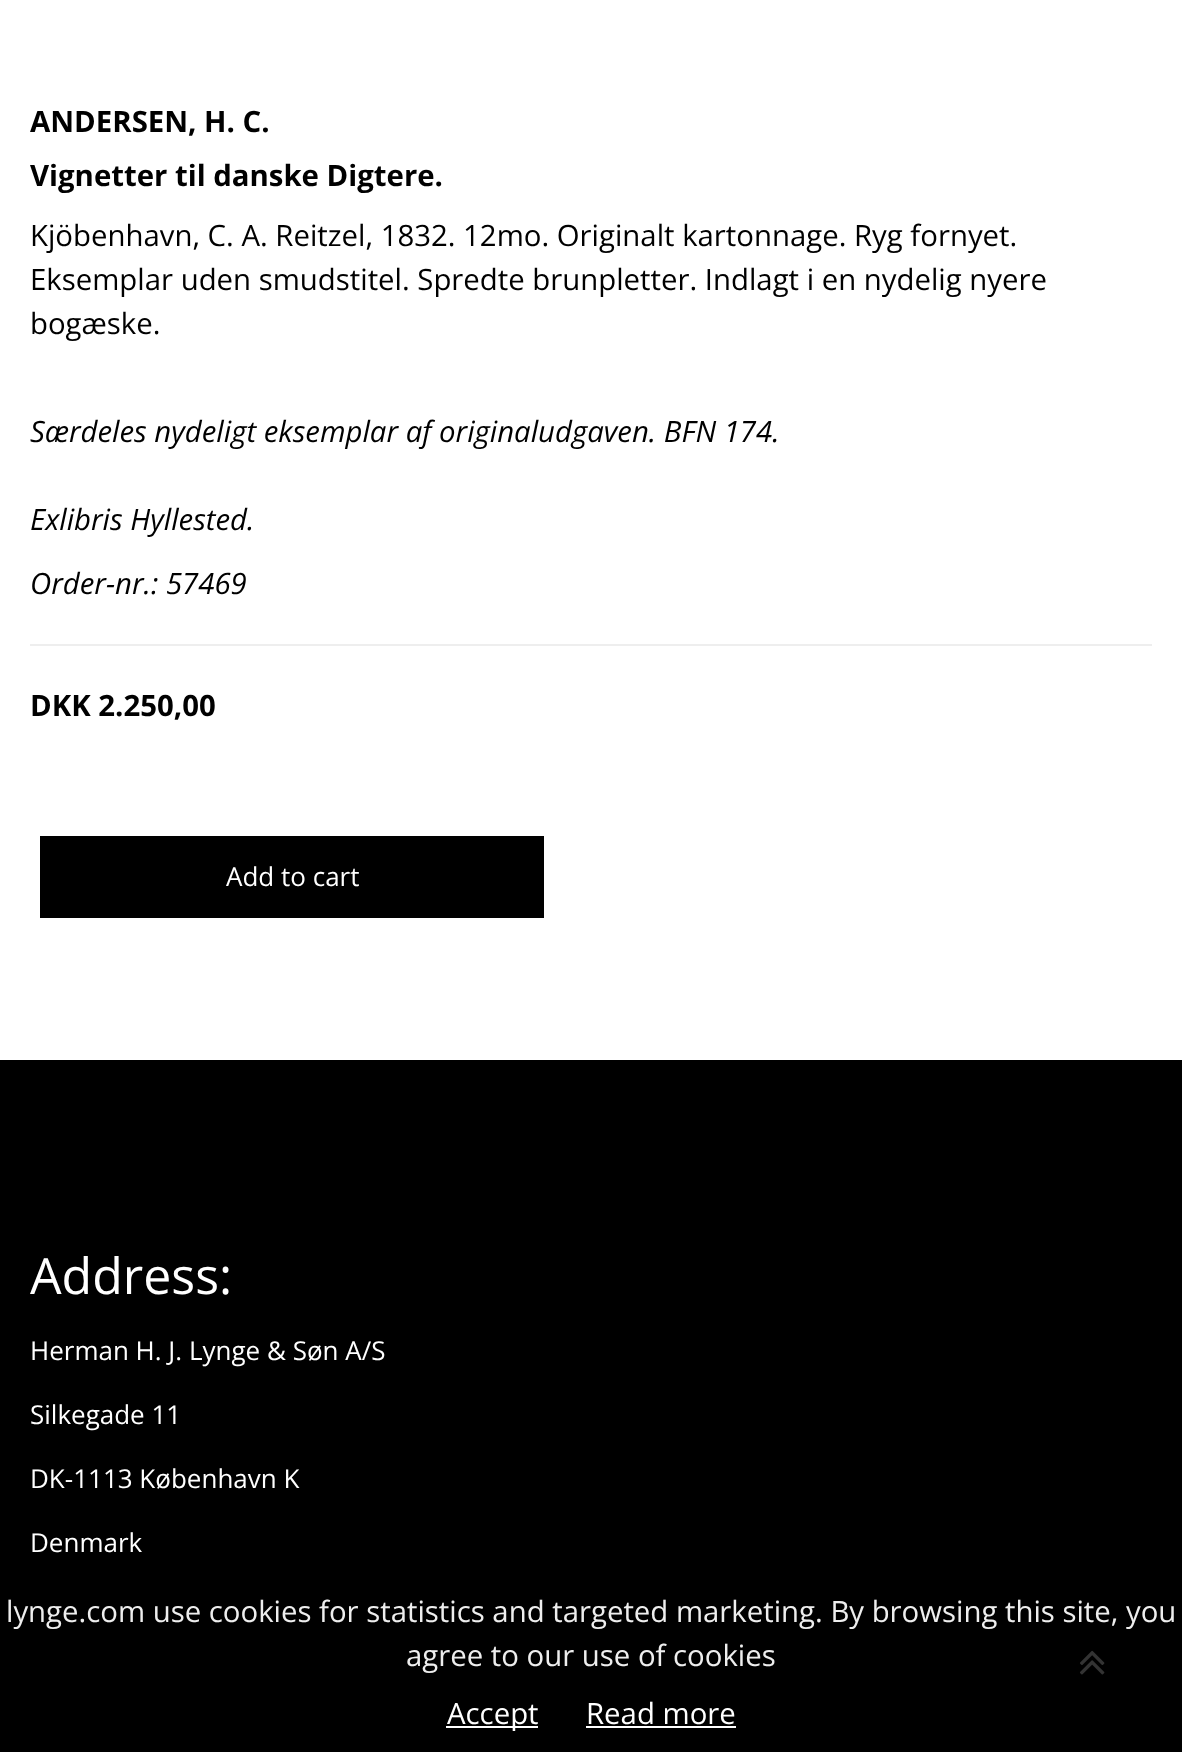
(async () => {
  const canvas = document.querySelector("canvas");
  canvas.width = 1182;
  canvas.height = 1752;
  const ctx = canvas.getContext("2d");
  ctx.miterLimit = 4;
  ctx.fontKerning = "normal";
  async function loadImage(src) {
    const img = new Image();
    img.src = src;
    await img.decode();
    return img;
  }

  ctx.fillStyle = "#ffffff";
  ctx.fillRect(0, 0, 1182, 1752);
  for (const [x, y, w, h, color] of [
    [30, 644, 1122, 2, "#eeeeee"],
    [40, 836, 504, 82, "#000000"],
    [0, 1060, 1182, 692, "#000000"],
  ]) {
    ctx.fillStyle = color;
    ctx.fillRect(x, y, w, h);
  }
  ctx.drawImage(await loadImage("img/1.png"), 1079, 1650, 26, 25);
  ctx.fillStyle = "#ffffff";
  ctx.fillRect(446, 1726, 92, 2);
  ctx.fillRect(586, 1726, 150, 2);
  ctx.font = "bold 29.35px Open Sans";
  ctx.fillStyle = "#000000";
  ctx.fillText("ANDERSEN, H. C.", 30, 132);
  ctx.fillText("Vignetter til danske Digtere.", 30, 186);
  ctx.font = "29.35px Open Sans";
  for (const [text, x, y] of [
    ["Kjöbenhavn, C. A. Reitzel, 1832. 12mo. Originalt kartonnage. Ryg fornyet.", 30, 246],
    ["Eksemplar uden smudstitel. Spredte brunpletter. Indlagt i en nydelig nyere", 30, 290],
    ["bogæske.", 30, 334],
  ]) {
    ctx.fillText(text, x, y);
  }
  ctx.font = "italic 29.35px Open Sans";
  for (const [text, x, y] of [
    ["Særdeles nydeligt eksemplar af originaludgaven. BFN 174.", 30, 442],
    ["Exlibris Hyllested.", 30, 530],
    ["Order-nr.: 57469", 30, 594],
  ]) {
    ctx.fillText(text, x, y);
  }
  ctx.font = "bold 29.35px Open Sans";
  ctx.fillText("DKK 2.250,00", 30, 716);
  ctx.font = "26px Open Sans";
  ctx.fillStyle = "#ffffff";
  ctx.fillText("Add to cart", 226, 886);
  ctx.font = "50px Open Sans";
  ctx.fillText("Address:", 30, 1294);
  ctx.font = "26px Open Sans";
  for (const [text, x, y] of [
    ["Herman H. J. Lynge & Søn A/S", 30, 1360],
    ["Silkegade 11", 30, 1424],
    ["DK-1113 København K", 30, 1488],
    ["Denmark", 30, 1552],
  ]) {
    ctx.fillText(text, x, y);
  }
  ctx.font = "29.35px Open Sans";
  ctx.fillStyle = "#eeeeee";
  ctx.fillText("lynge.com use cookies for statistics and targeted marketing. By browsing this site, you", 6, 1622);
  ctx.fillText("agree to our use of cookies", 406, 1666);
  ctx.fillStyle = "#ffffff";
  ctx.fillText("Accept", 447, 1724);
  ctx.fillText("Read more", 586, 1724);
})();
